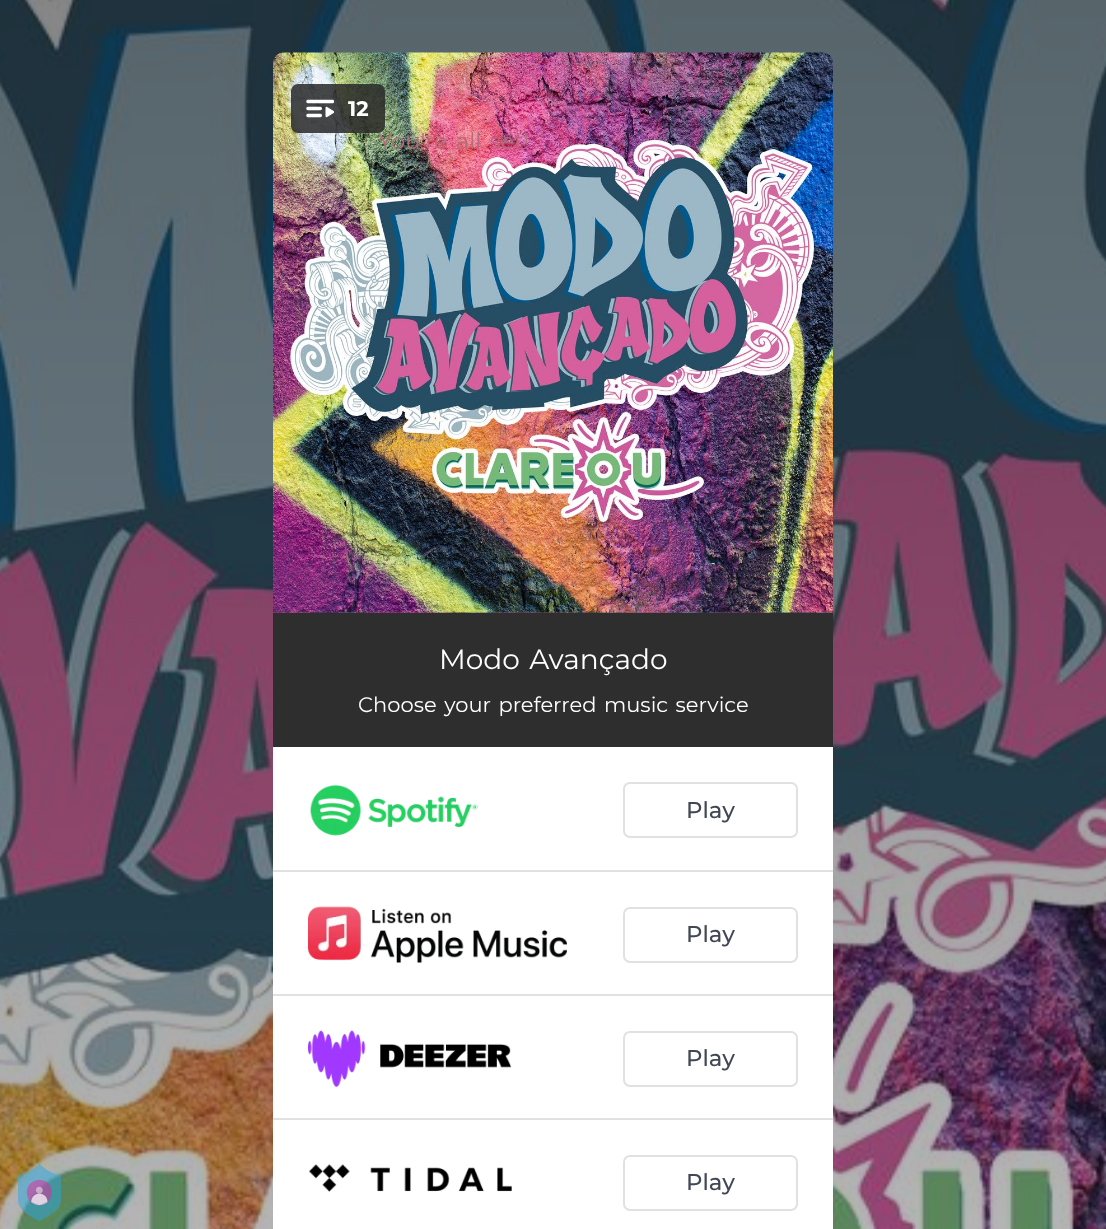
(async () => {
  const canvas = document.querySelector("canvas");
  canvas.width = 1106;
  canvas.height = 1229;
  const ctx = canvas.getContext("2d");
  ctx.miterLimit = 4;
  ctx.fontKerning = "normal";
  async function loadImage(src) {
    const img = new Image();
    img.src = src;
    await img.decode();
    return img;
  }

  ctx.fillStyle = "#ffffff";
  ctx.fillRect(0, 0, 1106, 1229);
  ctx.drawImage(await loadImage("img/2.png"), 0, 0, 1106, 1229);
  ctx.drawImage(await loadImage("img/1.png"), 18, 1164, 43, 58);
  ctx.drawImage(await loadImage("img/3.png"), 273, 52, 560, 561);
  for (const [x, y, w, h, color] of [
    [273, 613, 560, 134, "#2e2e2e"],
    [273, 747, 560, 482, "#ffffff"],
    [273, 870, 560, 2, "#e1e1e4"],
  ]) {
    ctx.fillStyle = color;
    ctx.fillRect(x, y, w, h);
  }
  ctx.drawImage(await loadImage("img/5.png"), 310, 784, 168, 52);
  ctx.beginPath();
  ctx.roundRect(624, 783, 173, 54, 6);
  ctx.strokeStyle = "#e1e1e4";
  ctx.lineWidth = 2;
  ctx.stroke();
  ctx.fillRect(273, 994, 560, 2);
  ctx.drawImage(await loadImage("img/6.png"), 308, 906, 259, 57);
  ctx.beginPath();
  ctx.roundRect(624, 908, 173, 54, 6);
  ctx.stroke();
  ctx.fillRect(273, 1118, 560, 2);
  ctx.drawImage(await loadImage("img/7.png"), 308, 1030, 203, 57);
  ctx.beginPath();
  ctx.roundRect(624, 1032, 173, 54, 6);
  ctx.stroke();
  ctx.drawImage(await loadImage("img/8.png"), 309, 1164, 203, 28);
  ctx.beginPath();
  ctx.roundRect(624, 1156, 173, 54, 6);
  ctx.stroke();
  ctx.wordSpacing = "2px";
  ctx.font = "22.75px Montserrat";
  ctx.fillStyle = "#b46b7a";
  ctx.fillText("You're all set!", 378, 149);
  ctx.fillStyle = "rgba(40, 40, 40, 0.85)";
  ctx.beginPath();
  ctx.roundRect(291, 84, 94, 49, 7);
  ctx.fill();
  ctx.wordSpacing = "0px";
  ctx.font = "bold 21px Montserrat";
  ctx.fillStyle = "#ffffff";
  ctx.fillText("12", 348, 116);
  ctx.drawImage(await loadImage("img/4.png"), 306, 99, 28, 19);
  ctx.wordSpacing = "2px";
  ctx.font = "28px Montserrat";
  ctx.fillText("Modo Avançado", 439, 669);
  ctx.font = "21px Montserrat";
  ctx.fillText("Choose your preferred music service", 358, 712);
  ctx.wordSpacing = "0px";
  ctx.font = "500 22.75px Montserrat";
  ctx.fillStyle = "#414754";
  for (const [text, x, y] of [
    ["Play", 686, 818],
    ["Play", 686, 942],
    ["Play", 686, 1066],
    ["Play", 686, 1190],
  ]) {
    ctx.fillText(text, x, y);
  }
})();
